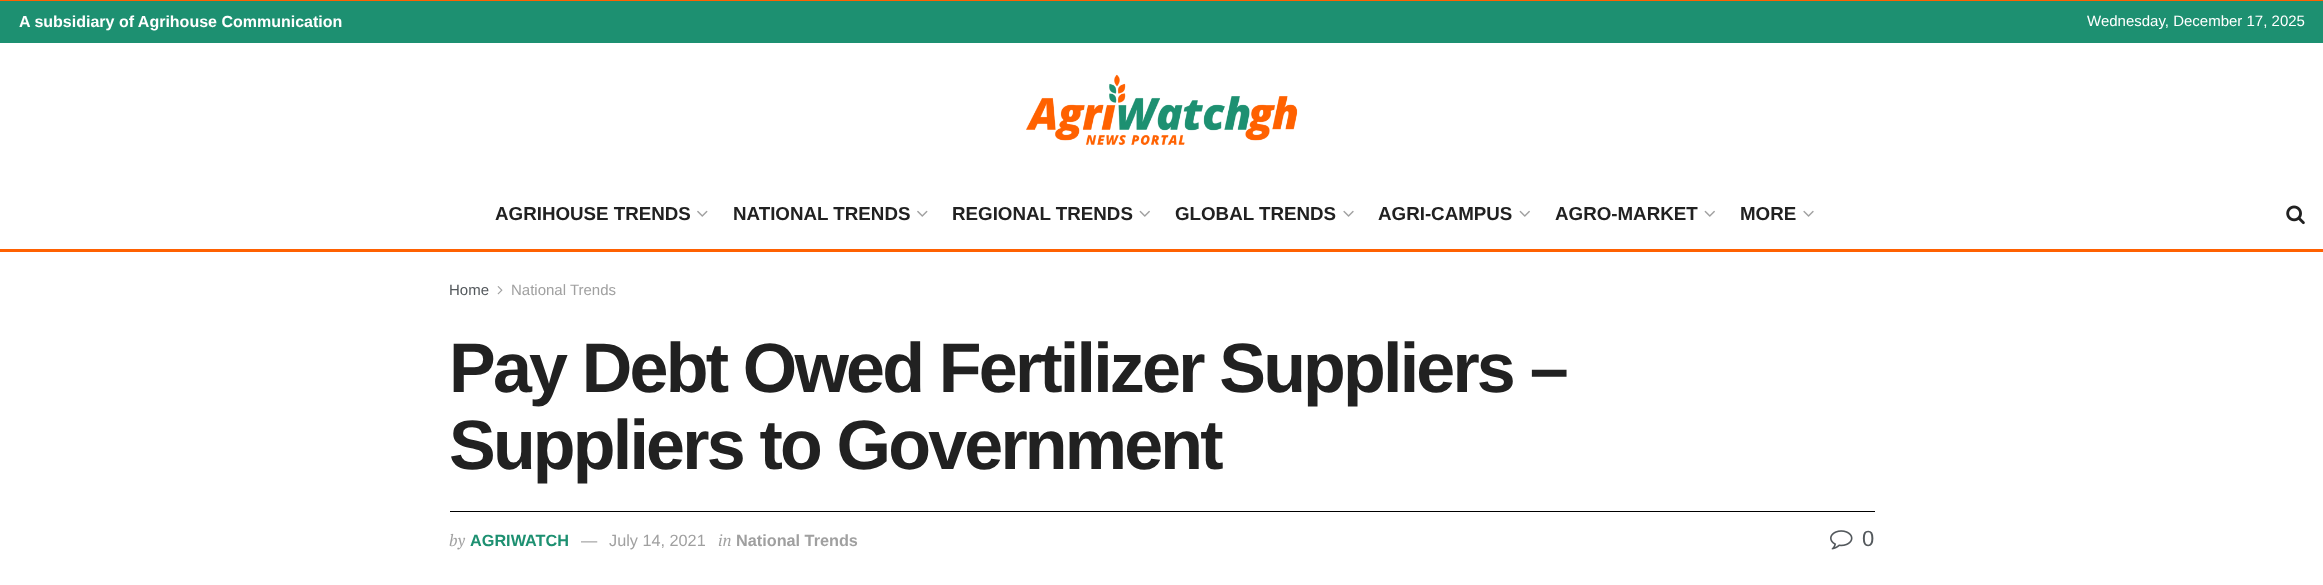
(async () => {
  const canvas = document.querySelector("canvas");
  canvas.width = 2323;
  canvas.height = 585;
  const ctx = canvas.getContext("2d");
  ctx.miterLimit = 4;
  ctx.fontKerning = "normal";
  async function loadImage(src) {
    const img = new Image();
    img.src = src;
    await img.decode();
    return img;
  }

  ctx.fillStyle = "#ffffff";
  ctx.fillRect(0, 0, 2323, 585);
  ctx.fillStyle = "#1d9071";
  ctx.fillRect(0, 1, 2323, 42);
  ctx.fillStyle = "#ff6101";
  ctx.fillRect(0, 0, 2323, 1);
  ctx.drawImage(await loadImage("img/1.png"), 1026, 74, 272, 71);
  ctx.fillRect(0, 249, 2323, 3);
  ctx.drawImage(await loadImage("img/2.png"), 697, 210, 11, 7);
  ctx.drawImage(await loadImage("img/2.png"), 917, 210, 11, 7);
  ctx.drawImage(await loadImage("img/3.png"), 1139, 210, 11, 7);
  ctx.drawImage(await loadImage("img/4.png"), 1343, 210, 11, 7);
  ctx.drawImage(await loadImage("img/3.png"), 1519, 210, 11, 7);
  ctx.drawImage(await loadImage("img/3.png"), 1704, 210, 11, 7);
  ctx.drawImage(await loadImage("img/4.png"), 1803, 210, 11, 7);
  ctx.drawImage(await loadImage("img/5.png"), 2286, 205, 19, 20);
  ctx.drawImage(await loadImage("img/6.png"), 497, 286, 6, 9);
  ctx.fillStyle = "#000000";
  ctx.fillRect(450, 511, 1425, 1);
  ctx.drawImage(await loadImage("img/7.png"), 1830, 530, 23, 20);
  ctx.font = "bold 16px Liberation Sans";
  ctx.fillStyle = "#ffffff";
  ctx.fillText("A subsidiary of Agrihouse Communication", 19, 27);
  ctx.font = "15px Liberation Sans";
  ctx.fillText("Wednesday, December 17, 2025", 2087, 26);
  ctx.font = "bold 18.75px Liberation Sans";
  ctx.fillStyle = "#212121";
  for (const [text, x, y] of [
    ["AGRIHOUSE TRENDS", 495, 220],
    ["NATIONAL TRENDS", 733, 220],
    ["REGIONAL TRENDS", 952, 220],
    ["GLOBAL TRENDS", 1175, 220],
    ["AGRI-CAMPUS", 1378, 220],
    ["AGRO-MARKET", 1555, 220],
    ["MORE", 1740, 220],
  ]) {
    ctx.fillText(text, x, y);
  }
  ctx.font = "15px Liberation Sans";
  ctx.fillStyle = "#53585c";
  ctx.fillText("Home", 449, 295);
  ctx.fillStyle = "#a0a0a0";
  ctx.fillText("National Trends", 511, 295);
  ctx.letterSpacing = "-2.8px";
  ctx.font = "bold 70px Liberation Sans";
  ctx.fillStyle = "#212121";
  ctx.fillText("Pay Debt Owed Fertilizer Suppliers –", 449, 392);
  ctx.fillText("Suppliers to Government", 449, 469);
  ctx.letterSpacing = "0px";
  ctx.font = "italic 16.25px PT Serif";
  ctx.fillStyle = "#a0a0a0";
  ctx.fillText("by", 449, 546);
  ctx.font = "bold 16.25px Liberation Sans";
  ctx.fillStyle = "#1d9071";
  ctx.fillText("AGRIWATCH", 470, 546);
  ctx.font = "16.25px Liberation Sans";
  ctx.fillStyle = "#a0a0a0";
  ctx.fillText("—", 581, 546);
  ctx.fillText("July 14, 2021", 609, 546);
  ctx.font = "italic 16.25px PT Serif";
  ctx.fillText("in", 718, 546);
  ctx.font = "bold 16.25px Liberation Sans";
  ctx.fillText("National Trends", 736, 546);
  ctx.font = "22px Liberation Sans";
  ctx.fillStyle = "#53585c";
  ctx.fillText("0", 1862, 546);
})();
